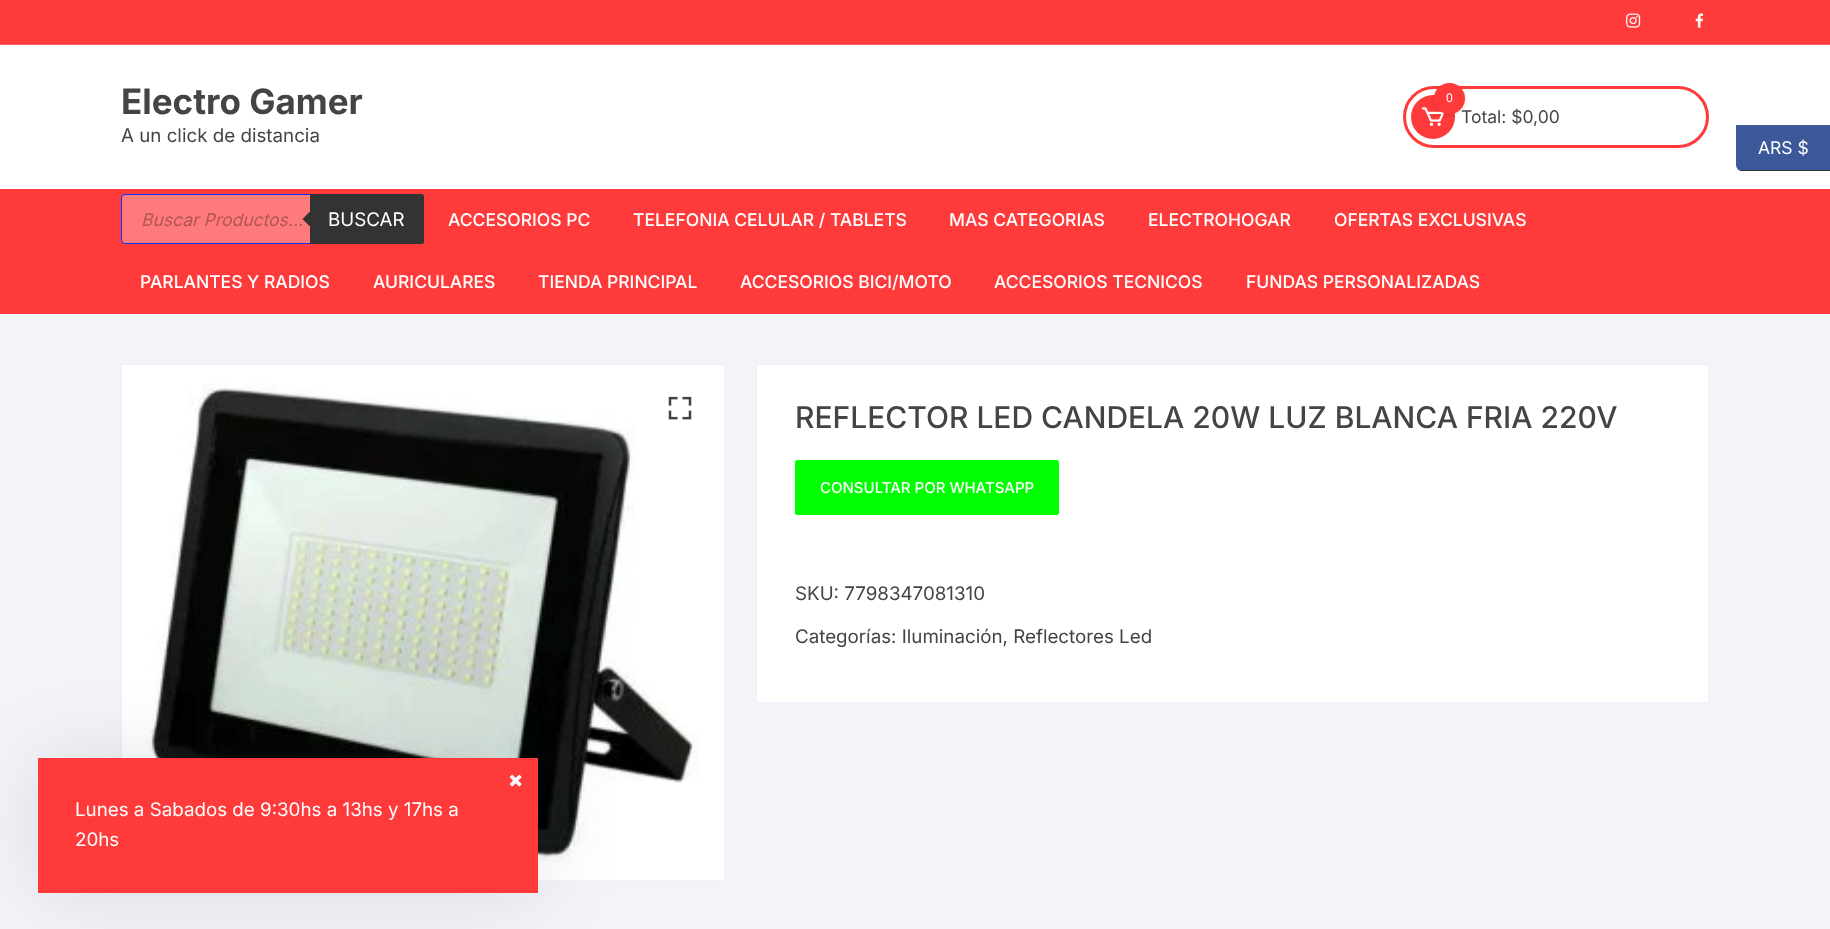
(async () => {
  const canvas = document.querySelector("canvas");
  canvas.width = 1830;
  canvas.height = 929;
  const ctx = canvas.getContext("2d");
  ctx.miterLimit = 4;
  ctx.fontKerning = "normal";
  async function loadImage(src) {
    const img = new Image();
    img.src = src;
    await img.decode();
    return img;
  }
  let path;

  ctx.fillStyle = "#f3f4f8";
  ctx.fillRect(0, 0, 1830, 929);
  for (const [x, y, w, h, color] of [
    [0, 45, 1830, 144, "#ffffff"],
    [0, 0, 1830, 44, "#ff3a3a"],
    [0, 44, 1830, 1, "#ff6161"],
  ]) {
    ctx.fillStyle = color;
    ctx.fillRect(x, y, w, h);
  }
  ctx.drawImage(await loadImage("img/1.png"), 1626, 13, 15, 15);
  ctx.drawImage(await loadImage("img/2.png"), 1695, 13, 8, 15);
  ctx.beginPath();
  ctx.roundRect(1404.5, 87.5, 303, 59, 29.5);
  ctx.strokeStyle = "#ff3a3a";
  ctx.lineWidth = 3;
  ctx.stroke();
  ctx.fillStyle = "#ff3a3a";
  ctx.beginPath();
  ctx.arc(1433, 117, 22, 0, Math.PI * 2);
  ctx.fill();
  ctx.drawImage(await loadImage("img/3.png"), 1422, 107, 22, 19);
  ctx.fillStyle = "rgba(0, 0, 0, 0.13)";
  ctx.filter = "blur(2px)";
  ctx.beginPath();
  ctx.roundRect(1434, 84, 31, 31, 15.5);
  ctx.fill();
  ctx.filter = "none";
  ctx.fillStyle = "#ff3a3a";
  ctx.fillRect(0, 189, 1830, 125);
  ctx.fillStyle = "#ff7a7a";
  ctx.beginPath();
  ctx.roundRect(121.5, 194.5, 302, 49, 3.5);
  ctx.fill();
  ctx.strokeStyle = "#0037ff";
  ctx.lineWidth = 1;
  ctx.stroke();
  ctx.fillStyle = "#333333";
  ctx.beginPath();
  ctx.roundRect(310, 194, 114, 50, [0, 2.5, 2.5, 0]);
  ctx.fill();
  ctx.fillStyle = "#ffffff";
  ctx.beginPath();
  ctx.rect(121.5, 364.5, 603, 516);
  ctx.fill();
  ctx.strokeStyle = "#eef1fd";
  ctx.stroke();
  ctx.drawImage(await loadImage("img/4.png"), 146, 383, 554, 479);
  ctx.drawImage(await loadImage("img/5.png"), 668, 396, 24, 24);
  ctx.beginPath();
  ctx.rect(756.5, 364.5, 952, 338);
  ctx.fill();
  ctx.stroke();
  ctx.fillStyle = "#00ff00";
  ctx.beginPath();
  ctx.roundRect(795, 460, 264, 55, 2.5);
  ctx.fill();
  ctx.fillStyle = "#3b5998";
  ctx.beginPath();
  ctx.roundRect(1736, 125, 94, 46, [0, 0, 0, 6]);
  ctx.fill();
  ctx.fillStyle = "#333333";
  ctx.fillRect(1740, 170, 90, 1);
  ctx.fillStyle = "rgba(0, 0, 0, 0.1)";
  ctx.filter = "blur(40.5px)";
  ctx.beginPath();
  ctx.rect(38, 758, 500, 135);
  ctx.fill();
  ctx.filter = "none";
  ctx.fillStyle = "#ff3a3a";
  ctx.fillRect(38, 758, 500, 135);
  ctx.drawImage(await loadImage("img/6.png"), 509, 774, 13, 13);
  ctx.font = "bold 35px Inter";
  ctx.fillStyle = "#444444";
  ctx.fillText("Electro Gamer", 121, 114);
  ctx.font = "18.75px Inter";
  ctx.fillText("A un click de distancia", 121, 142);
  ctx.font = "17.5px Inter";
  ctx.fillText("Total: $0,00", 1461, 123);
  ctx.fillStyle = "#ff3a3a";
  ctx.beginPath();
  ctx.arc(1449.5, 98.5, 15.5, 0, Math.PI * 2);
  ctx.fill();
  ctx.font = "12px Noto Sans";
  ctx.fillStyle = "#ffffff";
  ctx.fillText("0", 1446, 102);
  ctx.font = "italic 17.5px Inter";
  ctx.fillStyle = "#b35555";
  ctx.fillText("Buscar Productos...", 141, 226);
  ctx.fillStyle = "#333333";
  path = new Path2D("M312.5 209V229L302.5 219Z");
  ctx.fill(path);
  ctx.font = "18.75px Inter";
  ctx.fillStyle = "#ffffff";
  ctx.fillText("BUSCAR", 328, 226);
  ctx.font = "500 17.5px Inter";
  for (const [text, x, y] of [
    ["ACCESORIOS PC", 448, 226],
    ["TELEFONIA CELULAR / TABLETS", 633, 226],
    ["MAS CATEGORIAS", 949, 226],
    ["ELECTROHOGAR", 1148, 226],
    ["OFERTAS EXCLUSIVAS", 1334, 226],
    ["PARLANTES Y RADIOS", 140, 288],
    ["AURICULARES", 373, 288],
    ["TIENDA PRINCIPAL", 538, 288],
    ["ACCESORIOS BICI/MOTO", 740, 288],
    ["ACCESORIOS TECNICOS", 994, 288],
    ["FUNDAS PERSONALIZADAS", 1246, 288],
  ]) {
    ctx.fillText(text, x, y);
  }
  ctx.font = "500 30px Inter";
  ctx.fillStyle = "#444444";
  ctx.fillText("REFLECTOR LED CANDELA 20W LUZ BLANCA FRIA 220V", 795, 428);
  ctx.font = "500 15px Inter";
  ctx.fillStyle = "#ffffff";
  ctx.fillText("CONSULTAR POR WHATSAPP", 820, 493);
  ctx.font = "18.75px Inter";
  ctx.fillStyle = "#444444";
  ctx.fillText("SKU: 7798347081310", 795, 600);
  ctx.fillText("Categorías: Iluminación, Reflectores Led", 795, 643);
  ctx.font = "17.5px Inter";
  ctx.fillStyle = "#ffffff";
  ctx.fillText("ARS $", 1758, 154);
  ctx.font = "18.75px Inter";
  ctx.fillText("Lunes a Sabados de 9:30hs a 13hs y 17hs a", 75, 816);
  ctx.fillText("20hs", 75, 846);
})();
